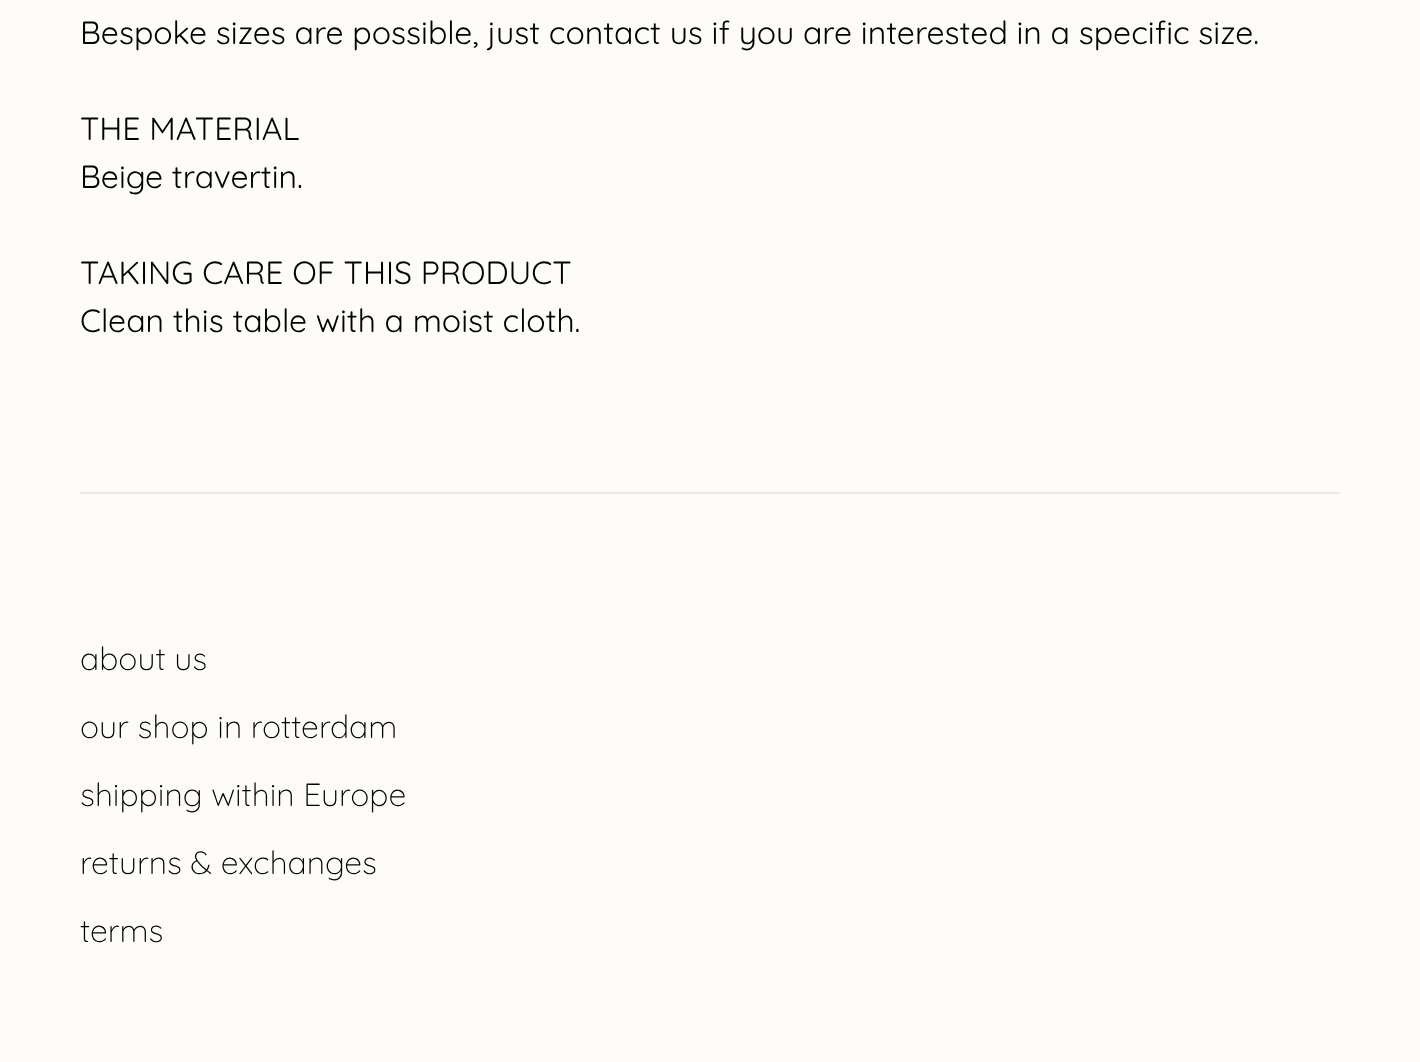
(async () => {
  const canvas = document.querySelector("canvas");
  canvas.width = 1420;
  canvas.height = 1062;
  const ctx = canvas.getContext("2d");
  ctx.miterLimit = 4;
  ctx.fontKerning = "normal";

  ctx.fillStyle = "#fefcf9";
  ctx.fillRect(0, 0, 1420, 1062);
  ctx.fillStyle = "#eae8e5";
  ctx.fillRect(80, 492, 1260, 2);
  ctx.font = "32px Quicksand";
  ctx.fillStyle = "#000000";
  for (const [text, x, y] of [
    ["Bespoke sizes are possible, just contact us if you are interested in a specific size.", 80, 44],
    ["THE MATERIAL", 80, 140],
    ["Beige travertin.", 80, 188],
    ["TAKING CARE OF THIS PRODUCT", 80, 284],
    ["Clean this table with a moist cloth.", 80, 332],
  ]) {
    ctx.fillText(text, x, y);
  }
  ctx.font = "300 32px Quicksand";
  for (const [text, x, y] of [
    ["about us", 80, 670],
    ["our shop in rotterdam", 80, 738],
    ["shipping within Europe", 80, 806],
    ["returns & exchanges", 80, 874],
    ["terms", 80, 942],
  ]) {
    ctx.fillText(text, x, y);
  }
})();
